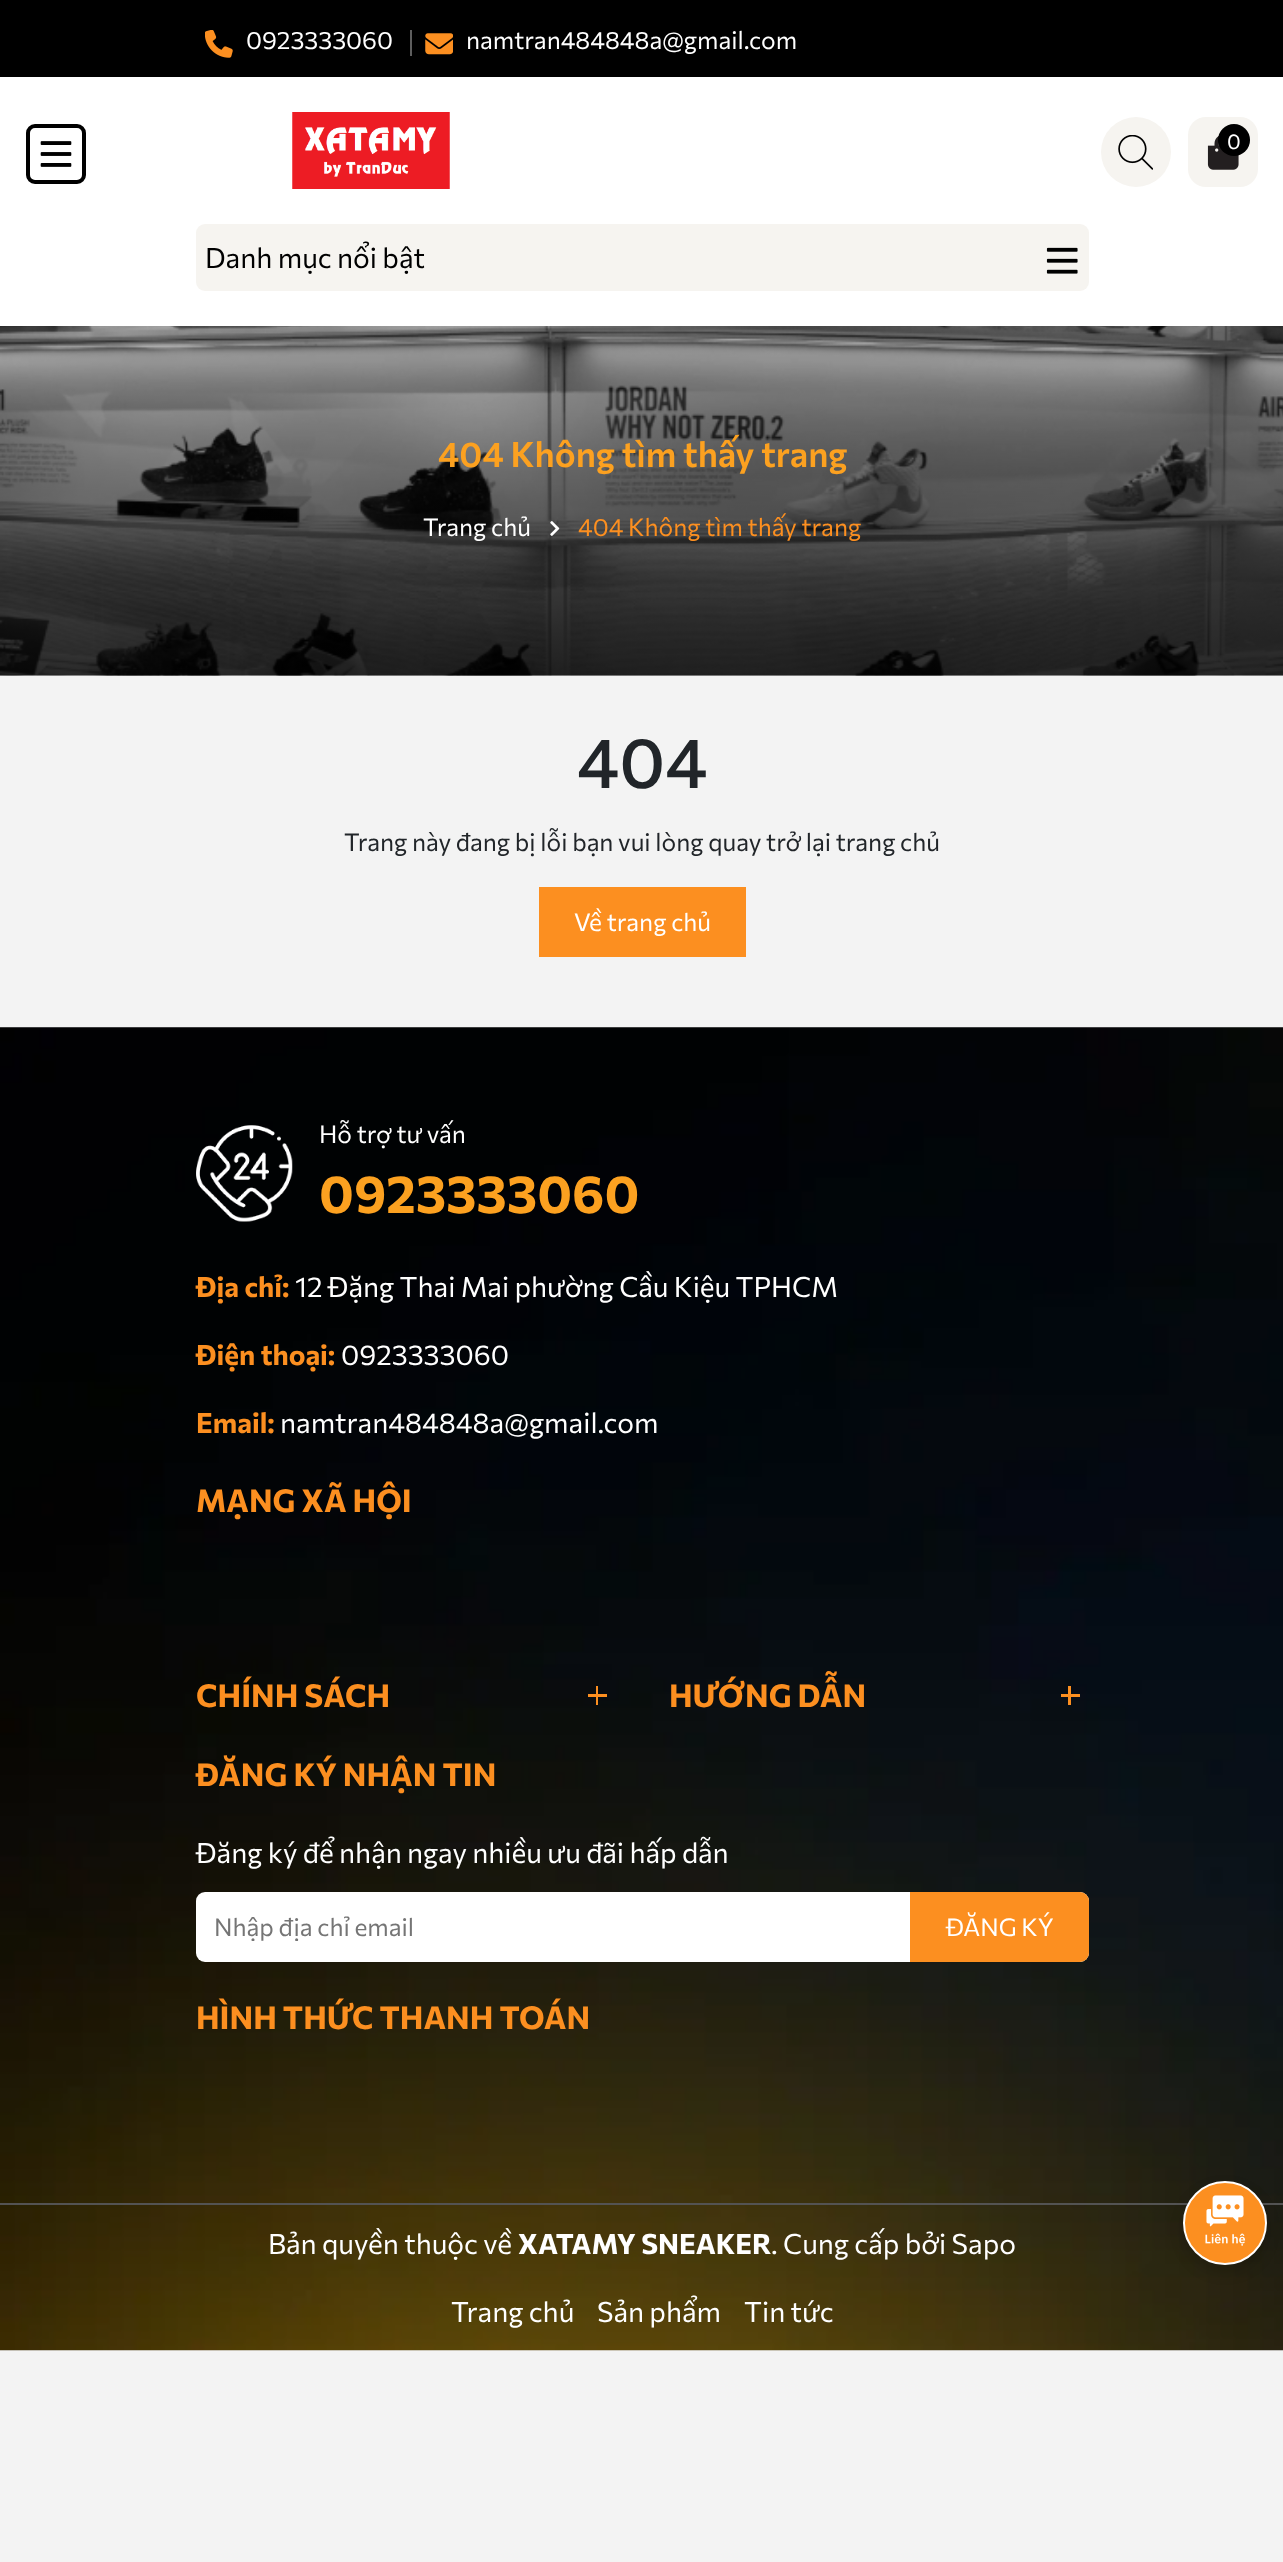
(async () => {
  const canvas = document.querySelector("canvas");
  canvas.width = 1283;
  canvas.height = 2562;
  const ctx = canvas.getContext("2d");
  ctx.miterLimit = 4;
  ctx.fontKerning = "normal";
  async function loadImage(src) {
    const img = new Image();
    img.src = src;
    await img.decode();
    return img;
  }

  ctx.fillStyle = "#f3f3f3";
  ctx.fillRect(0, 0, 1283, 2562);
  ctx.fillStyle = "#000000";
  ctx.fillRect(0, 0, 1283, 77);
  ctx.drawImage(await loadImage("img/1.png"), 205, 30, 28, 28);
  ctx.fillStyle = "#5e5e5e";
  ctx.fillRect(410, 30, 2, 26);
  ctx.drawImage(await loadImage("img/2.png"), 425, 33, 28, 22);
  ctx.fillStyle = "#ffffff";
  ctx.fillRect(0, 77, 1283, 249);
  ctx.beginPath();
  ctx.roundRect(28, 126, 56, 56, 7);
  ctx.strokeStyle = "#000000";
  ctx.lineWidth = 4;
  ctx.stroke();
  ctx.drawImage(await loadImage("img/3.png"), 40, 141, 32, 26);
  ctx.drawImage(await loadImage("img/4.png"), 292, 112, 158, 77);
  ctx.fillStyle = "#f6f4f0";
  ctx.beginPath();
  ctx.arc(1136, 152, 35, 0, Math.PI * 2);
  ctx.fill();
  ctx.drawImage(await loadImage("img/5.png"), 1118, 135, 35, 35);
  ctx.beginPath();
  ctx.roundRect(1188, 117, 70, 70, 18);
  ctx.fill();
  ctx.drawImage(await loadImage("img/6.png"), 1207, 136, 32, 34);
  ctx.fillStyle = "#000000";
  ctx.beginPath();
  ctx.arc(1234, 140, 16, 0, Math.PI * 2);
  ctx.fill();
  ctx.fillStyle = "#f6f4f0";
  ctx.beginPath();
  ctx.roundRect(196, 224, 893, 67, 9);
  ctx.fill();
  ctx.drawImage(await loadImage("img/7.png"), 1046, 247, 32, 27);
  ctx.drawImage(await loadImage("img/8.png"), 0, 326, 1283, 350);
  ctx.drawImage(await loadImage("img/9.png"), 550, 521, 10, 15);
  ctx.fillStyle = "#fc8f20";
  ctx.fillRect(539, 887, 207, 70);
  ctx.drawImage(await loadImage("img/10.png"), 0, 1027, 1283, 1324);
  ctx.drawImage(await loadImage("img/11.png"), 196, 1125, 97, 97);
  for (const [x, y, w, h, color] of [
    [596, 1686, 2, 19, "#fc8f20"],
    [588, 1694, 19, 3, "#fc8f20"],
    [1068, 1686, 3, 19, "#fc8f20"],
    [1061, 1694, 19, 3, "#fc8f20"],
  ]) {
    ctx.fillStyle = color;
    ctx.fillRect(x, y, w, h);
  }
  ctx.fillStyle = "#ffffff";
  ctx.beginPath();
  ctx.roundRect(196, 1892, 893, 70, 9);
  ctx.fill();
  ctx.fillStyle = "#fc8f20";
  ctx.beginPath();
  ctx.roundRect(910, 1892, 179, 70, [0, 9, 9, 0]);
  ctx.fill();
  ctx.fillStyle = "#535353";
  ctx.fillRect(0, 2203, 1283, 2);
  ctx.fillStyle = "rgba(0, 0, 0, 0.15)";
  ctx.filter = "blur(7px)";
  ctx.beginPath();
  ctx.roundRect(1183, 2188, 84, 84, 42);
  ctx.fill();
  ctx.filter = "none";
  ctx.fillStyle = "#fc8f20";
  ctx.beginPath();
  ctx.arc(1225, 2223, 41, 0, Math.PI * 2);
  ctx.fill();
  ctx.strokeStyle = "#ffffff";
  ctx.lineWidth = 2;
  ctx.stroke();
  ctx.drawImage(await loadImage("img/12.png"), 1205, 2195, 41, 51);
  ctx.font = "24.5px Commissioner";
  ctx.fillStyle = "#ffffff";
  ctx.fillText("0923333060", 246, 49);
  ctx.fillText("namtran484848a@gmail.com", 466, 49);
  ctx.font = "21px Commissioner";
  ctx.fillText("0", 1227, 149);
  ctx.font = "28px Commissioner";
  ctx.fillStyle = "#000000";
  ctx.fillText("Danh mục nổi bật", 205, 268);
  ctx.font = "600 35px Commissioner";
  ctx.fillStyle = "#fca120";
  ctx.fillText("404 Không tìm thấy trang", 438, 467);
  ctx.font = "24.5px Commissioner";
  ctx.fillStyle = "#ffffff";
  ctx.fillText("Trang chủ", 423, 536);
  ctx.fillStyle = "#fc8f20";
  ctx.fillText("404 Không tìm thấy trang", 578, 536);
  ctx.font = "500 70px Commissioner";
  ctx.fillStyle = "#212529";
  ctx.fillText("404", 577, 788);
  ctx.font = "24.5px Commissioner";
  ctx.fillText("Trang này đang bị lỗi bạn vui lòng quay trở lại trang chủ", 344, 851);
  ctx.fillStyle = "#ffffff";
  ctx.fillText("Về trang chủ", 574, 931);
  ctx.fillText("Hỗ trợ tư vấn", 319, 1143);
  ctx.font = "bold 52.5px Commissioner";
  ctx.fillStyle = "#fca120";
  ctx.fillText("0923333060", 319, 1213);
  ctx.font = "bold 28px Commissioner";
  ctx.fillStyle = "#fc8f20";
  ctx.fillText("Địa chỉ:", 196, 1297);
  ctx.font = "28px Commissioner";
  ctx.fillStyle = "#ffffff";
  ctx.fillText("12 Đặng Thai Mai phường Cầu Kiệu TPHCM", 295, 1297);
  ctx.font = "bold 28px Commissioner";
  ctx.fillStyle = "#fc8f20";
  ctx.fillText("Điện thoại:", 196, 1365);
  ctx.font = "28px Commissioner";
  ctx.fillStyle = "#ffffff";
  ctx.fillText("0923333060", 341, 1365);
  ctx.font = "bold 28px Commissioner";
  ctx.fillStyle = "#fc8f20";
  ctx.fillText("Email:", 196, 1433);
  ctx.font = "28px Commissioner";
  ctx.fillStyle = "#ffffff";
  ctx.fillText("namtran484848a@gmail.com", 280, 1433);
  ctx.font = "bold 31.5px Commissioner";
  ctx.fillStyle = "#fc8f20";
  for (const [text, x, y] of [
    ["MẠNG XÃ HỘI", 196, 1512],
    ["CHÍNH SÁCH", 196, 1707],
    ["HƯỚNG DẪN", 669, 1707],
    ["ĐĂNG KÝ NHẬN TIN", 196, 1786],
  ]) {
    ctx.fillText(text, x, y);
  }
  ctx.font = "28px Commissioner";
  ctx.fillStyle = "#ffffff";
  ctx.fillText("Đăng ký để nhận ngay nhiều ưu đãi hấp dẫn", 196, 1863);
  ctx.save();
  ctx.beginPath();
  ctx.rect(214, 1911, 700, 30);
  ctx.clip();
  ctx.font = "24.5px Commissioner";
  ctx.fillStyle = "#757575";
  ctx.fillText("Nhập địa chỉ email", 214, 1936);
  ctx.restore();
  ctx.font = "24.5px Commissioner";
  ctx.fillText("ĐĂNG KÝ", 946, 1936);
  ctx.font = "bold 31.5px Commissioner";
  ctx.fillStyle = "#fc8f20";
  ctx.fillText("HÌNH THỨC THANH TOÁN", 196, 2029);
  ctx.font = "28px Commissioner";
  ctx.fillStyle = "#ffffff";
  ctx.fillText("Bản quyền thuộc về", 268, 2254);
  ctx.font = "bold 28px Commissioner";
  ctx.fillText("XATAMY SNEAKER", 518, 2254);
  ctx.font = "28px Commissioner";
  for (const [text, x, y] of [
    [". Cung cấp bởi Sapo", 771, 2254],
    ["Trang chủ", 451, 2322],
    ["Sản phẩm", 597, 2322],
    ["Tin tức", 744, 2322],
  ]) {
    ctx.fillText(text, x, y);
  }
})();
